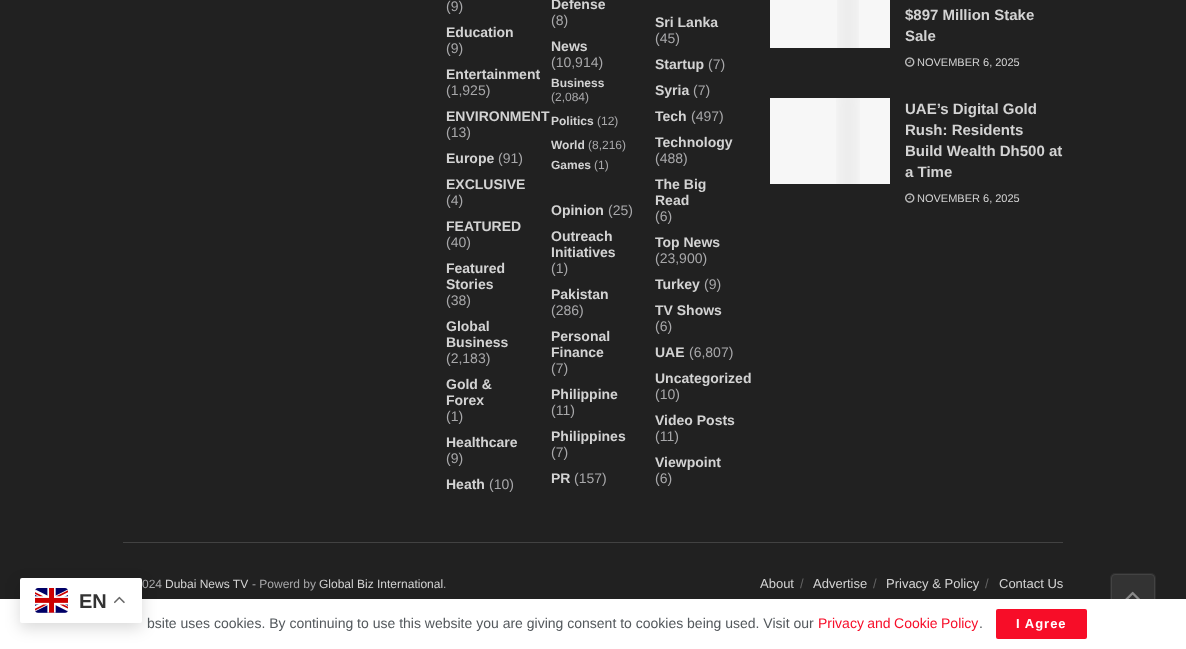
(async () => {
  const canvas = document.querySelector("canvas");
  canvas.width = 1186;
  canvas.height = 649;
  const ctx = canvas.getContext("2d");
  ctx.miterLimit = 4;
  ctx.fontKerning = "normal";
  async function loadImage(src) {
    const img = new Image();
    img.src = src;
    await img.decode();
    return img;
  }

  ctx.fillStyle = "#212121";
  ctx.fillRect(0, 0, 1186, 649);
  ctx.fillStyle = "#f7f7f7";
  ctx.fillRect(770, 0, 120, 48);
  ctx.drawImage(await loadImage("img/1.png"), 837, 0, 22, 48);
  ctx.drawImage(await loadImage("img/2.png"), 905, 57, 10, 10);
  ctx.fillRect(770, 98, 120, 86);
  ctx.drawImage(await loadImage("img/3.png"), 836, 98, 24, 86);
  ctx.drawImage(await loadImage("img/2.png"), 905, 193, 10, 10);
  ctx.fillStyle = "#424242";
  ctx.fillRect(123, 542, 940, 1);
  ctx.fillStyle = "#333333";
  ctx.beginPath();
  ctx.roundRect(1110, 573, 46, 46, 5);
  ctx.fill();
  ctx.beginPath();
  ctx.roundRect(1111.5, 574.5, 43, 43, 3.5);
  ctx.strokeStyle = "#434343";
  ctx.stroke();
  ctx.beginPath();
  ctx.roundRect(1110.5, 573.5, 45, 45, 4.5);
  ctx.strokeStyle = "rgba(7, 7, 7, 0.11)";
  ctx.stroke();
  ctx.drawImage(await loadImage("img/4.png"), 1125, 591, 15, 8);
  ctx.fillStyle = "rgba(0, 0, 0, 0.2)";
  ctx.filter = "blur(0.5px)";
  ctx.beginPath();
  ctx.rect(0, 599, 1186, 50);
  ctx.fill();
  ctx.filter = "none";
  ctx.fillStyle = "#ffffff";
  ctx.fillRect(0, 599, 1186, 50);
  ctx.fillStyle = "rgba(0, 0, 0, 0.15)";
  ctx.filter = "blur(7.5px)";
  ctx.beginPath();
  ctx.roundRect(20, 583, 122, 45, 2);
  ctx.fill();
  ctx.filter = "none";
  ctx.fillStyle = "#ffffff";
  ctx.beginPath();
  ctx.roundRect(20, 578, 122, 45, 2);
  ctx.fill();
  ctx.drawImage(await loadImage("img/5.png"), 35, 588, 33, 25);
  ctx.drawImage(await loadImage("img/6.png"), 114, 596, 11, 8);
  ctx.fillStyle = "#f70d28";
  ctx.beginPath();
  ctx.roundRect(996, 609, 91, 30, 2);
  ctx.fill();
  ctx.font = "14px Liberation Sans";
  ctx.fillStyle = "#a8a8aa";
  ctx.fillText("(9)", 446, 11);
  ctx.font = "bold 14px Liberation Sans";
  ctx.fillStyle = "#d3d3d3";
  ctx.fillText("Defense", 551, 9);
  ctx.font = "14px Liberation Sans";
  ctx.fillStyle = "#a8a8aa";
  ctx.fillText("(8)", 551, 25);
  ctx.font = "bold 14px Liberation Sans";
  ctx.fillStyle = "#d3d3d3";
  ctx.fillText("Sri Lanka", 655, 27);
  ctx.font = "14px Liberation Sans";
  ctx.fillStyle = "#a8a8aa";
  ctx.fillText("(45)", 655, 43);
  ctx.font = "bold 14px Liberation Sans";
  ctx.fillStyle = "#d3d3d3";
  ctx.fillText("Education", 446, 37);
  ctx.font = "14px Liberation Sans";
  ctx.fillStyle = "#a8a8aa";
  ctx.fillText("(9)", 446, 53);
  ctx.font = "bold 14px Liberation Sans";
  ctx.fillStyle = "#d3d3d3";
  ctx.fillText("News", 551, 51);
  ctx.font = "14px Liberation Sans";
  ctx.fillStyle = "#a8a8aa";
  ctx.fillText("(10,914)", 551, 67);
  ctx.font = "bold 12px Liberation Sans";
  ctx.fillStyle = "#d3d3d3";
  ctx.fillText("Business", 551, 87);
  ctx.font = "12px Liberation Sans";
  ctx.fillStyle = "#a8a8aa";
  ctx.fillText("(2,084)", 551, 101);
  ctx.font = "bold 12px Liberation Sans";
  ctx.fillStyle = "#d3d3d3";
  ctx.fillText("Politics", 551, 125);
  ctx.font = "12px Liberation Sans";
  ctx.fillStyle = "#a8a8aa";
  ctx.fillText("(12)", 597, 125);
  ctx.font = "bold 12px Liberation Sans";
  ctx.fillStyle = "#d3d3d3";
  ctx.fillText("World", 551, 149);
  ctx.font = "12px Liberation Sans";
  ctx.fillStyle = "#a8a8aa";
  ctx.fillText("(8,216)", 588, 149);
  ctx.font = "bold 12px Liberation Sans";
  ctx.fillStyle = "#d3d3d3";
  ctx.fillText("Games", 551, 169);
  ctx.font = "12px Liberation Sans";
  ctx.fillStyle = "#a8a8aa";
  ctx.fillText("(1)", 594, 169);
  ctx.font = "bold 14px Liberation Sans";
  ctx.fillStyle = "#d3d3d3";
  ctx.fillText("Startup", 655, 69);
  ctx.font = "14px Liberation Sans";
  ctx.fillStyle = "#a8a8aa";
  ctx.fillText("(7)", 708, 69);
  ctx.font = "bold 14px Liberation Sans";
  ctx.fillStyle = "#d3d3d3";
  ctx.fillText("Entertainment", 446, 79);
  ctx.font = "14px Liberation Sans";
  ctx.fillStyle = "#a8a8aa";
  ctx.fillText("(1,925)", 446, 95);
  ctx.font = "bold 14px Liberation Sans";
  ctx.fillStyle = "#d3d3d3";
  ctx.fillText("Syria", 655, 95);
  ctx.font = "14px Liberation Sans";
  ctx.fillStyle = "#a8a8aa";
  ctx.fillText("(7)", 693, 95);
  ctx.font = "bold 14px Liberation Sans";
  ctx.fillStyle = "#d3d3d3";
  ctx.fillText("ENVIRONMENT", 446, 121);
  ctx.font = "14px Liberation Sans";
  ctx.fillStyle = "#a8a8aa";
  ctx.fillText("(13)", 446, 137);
  ctx.font = "bold 14px Liberation Sans";
  ctx.fillStyle = "#d3d3d3";
  ctx.fillText("Tech", 655, 121);
  ctx.font = "14px Liberation Sans";
  ctx.fillStyle = "#a8a8aa";
  ctx.fillText("(497)", 691, 121);
  ctx.font = "bold 14px Liberation Sans";
  ctx.fillStyle = "#d3d3d3";
  ctx.fillText("Europe", 446, 163);
  ctx.font = "14px Liberation Sans";
  ctx.fillStyle = "#a8a8aa";
  ctx.fillText("(91)", 498, 163);
  ctx.font = "bold 14px Liberation Sans";
  ctx.fillStyle = "#d3d3d3";
  ctx.fillText("Technology", 655, 147);
  ctx.font = "14px Liberation Sans";
  ctx.fillStyle = "#a8a8aa";
  ctx.fillText("(488)", 655, 163);
  ctx.font = "bold 14px Liberation Sans";
  ctx.fillStyle = "#d3d3d3";
  ctx.fillText("EXCLUSIVE", 446, 189);
  ctx.font = "14px Liberation Sans";
  ctx.fillStyle = "#a8a8aa";
  ctx.fillText("(4)", 446, 205);
  ctx.font = "bold 14px Liberation Sans";
  ctx.fillStyle = "#d3d3d3";
  ctx.fillText("The Big", 655, 189);
  ctx.fillText("Read", 655, 205);
  ctx.font = "14px Liberation Sans";
  ctx.fillStyle = "#a8a8aa";
  ctx.fillText("(6)", 655, 221);
  ctx.font = "bold 14px Liberation Sans";
  ctx.fillStyle = "#d3d3d3";
  ctx.fillText("Opinion", 551, 215);
  ctx.font = "14px Liberation Sans";
  ctx.fillStyle = "#a8a8aa";
  ctx.fillText("(25)", 608, 215);
  ctx.font = "bold 14px Liberation Sans";
  ctx.fillStyle = "#d3d3d3";
  ctx.fillText("FEATURED", 446, 231);
  ctx.font = "14px Liberation Sans";
  ctx.fillStyle = "#a8a8aa";
  ctx.fillText("(40)", 446, 247);
  ctx.font = "bold 14px Liberation Sans";
  ctx.fillStyle = "#d3d3d3";
  ctx.fillText("Outreach", 551, 241);
  ctx.fillText("Initiatives", 551, 257);
  ctx.font = "14px Liberation Sans";
  ctx.fillStyle = "#a8a8aa";
  ctx.fillText("(1)", 551, 273);
  ctx.font = "bold 14px Liberation Sans";
  ctx.fillStyle = "#d3d3d3";
  ctx.fillText("Top News", 655, 247);
  ctx.font = "14px Liberation Sans";
  ctx.fillStyle = "#a8a8aa";
  ctx.fillText("(23,900)", 655, 263);
  ctx.font = "bold 14px Liberation Sans";
  ctx.fillStyle = "#d3d3d3";
  ctx.fillText("Featured", 446, 273);
  ctx.fillText("Stories", 446, 289);
  ctx.font = "14px Liberation Sans";
  ctx.fillStyle = "#a8a8aa";
  ctx.fillText("(38)", 446, 305);
  ctx.font = "bold 14px Liberation Sans";
  ctx.fillStyle = "#d3d3d3";
  ctx.fillText("Turkey", 655, 289);
  ctx.font = "14px Liberation Sans";
  ctx.fillStyle = "#a8a8aa";
  ctx.fillText("(9)", 704, 289);
  ctx.font = "bold 14px Liberation Sans";
  ctx.fillStyle = "#d3d3d3";
  ctx.fillText("Global", 446, 331);
  ctx.fillText("Business", 446, 347);
  ctx.font = "14px Liberation Sans";
  ctx.fillStyle = "#a8a8aa";
  ctx.fillText("(2,183)", 446, 363);
  ctx.font = "bold 14px Liberation Sans";
  ctx.fillStyle = "#d3d3d3";
  ctx.fillText("Pakistan", 551, 299);
  ctx.font = "14px Liberation Sans";
  ctx.fillStyle = "#a8a8aa";
  ctx.fillText("(286)", 551, 315);
  ctx.font = "bold 14px Liberation Sans";
  ctx.fillStyle = "#d3d3d3";
  ctx.fillText("TV Shows", 655, 315);
  ctx.font = "14px Liberation Sans";
  ctx.fillStyle = "#a8a8aa";
  ctx.fillText("(6)", 655, 331);
  ctx.font = "bold 14px Liberation Sans";
  ctx.fillStyle = "#d3d3d3";
  ctx.fillText("Personal", 551, 341);
  ctx.fillText("Finance", 551, 357);
  ctx.font = "14px Liberation Sans";
  ctx.fillStyle = "#a8a8aa";
  ctx.fillText("(7)", 551, 373);
  ctx.font = "bold 14px Liberation Sans";
  ctx.fillStyle = "#d3d3d3";
  ctx.fillText("UAE", 655, 357);
  ctx.font = "14px Liberation Sans";
  ctx.fillStyle = "#a8a8aa";
  ctx.fillText("(6,807)", 689, 357);
  ctx.font = "bold 14px Liberation Sans";
  ctx.fillStyle = "#d3d3d3";
  ctx.fillText("Gold &", 446, 389);
  ctx.fillText("Forex", 446, 405);
  ctx.font = "14px Liberation Sans";
  ctx.fillStyle = "#a8a8aa";
  ctx.fillText("(1)", 446, 421);
  ctx.font = "bold 14px Liberation Sans";
  ctx.fillStyle = "#d3d3d3";
  ctx.fillText("Philippine", 551, 399);
  ctx.font = "14px Liberation Sans";
  ctx.fillStyle = "#a8a8aa";
  ctx.fillText("(11)", 551, 415);
  ctx.font = "bold 14px Liberation Sans";
  ctx.fillStyle = "#d3d3d3";
  ctx.fillText("Uncategorized", 655, 383);
  ctx.font = "14px Liberation Sans";
  ctx.fillStyle = "#a8a8aa";
  ctx.fillText("(10)", 655, 399);
  ctx.font = "bold 14px Liberation Sans";
  ctx.fillStyle = "#d3d3d3";
  ctx.fillText("Healthcare", 446, 447);
  ctx.font = "14px Liberation Sans";
  ctx.fillStyle = "#a8a8aa";
  ctx.fillText("(9)", 446, 463);
  ctx.font = "bold 14px Liberation Sans";
  ctx.fillStyle = "#d3d3d3";
  ctx.fillText("Philippines", 551, 441);
  ctx.font = "14px Liberation Sans";
  ctx.fillStyle = "#a8a8aa";
  ctx.fillText("(7)", 551, 457);
  ctx.font = "bold 14px Liberation Sans";
  ctx.fillStyle = "#d3d3d3";
  ctx.fillText("Video Posts", 655, 425);
  ctx.font = "14px Liberation Sans";
  ctx.fillStyle = "#a8a8aa";
  ctx.fillText("(11)", 655, 441);
  ctx.font = "bold 14px Liberation Sans";
  ctx.fillStyle = "#d3d3d3";
  ctx.fillText("Heath", 446, 489);
  ctx.font = "14px Liberation Sans";
  ctx.fillStyle = "#a8a8aa";
  ctx.fillText("(10)", 489, 489);
  ctx.font = "bold 14px Liberation Sans";
  ctx.fillStyle = "#d3d3d3";
  ctx.fillText("PR", 551, 483);
  ctx.font = "14px Liberation Sans";
  ctx.fillStyle = "#a8a8aa";
  ctx.fillText("(157)", 574, 483);
  ctx.font = "bold 14px Liberation Sans";
  ctx.fillStyle = "#d3d3d3";
  ctx.fillText("Viewpoint", 655, 467);
  ctx.font = "14px Liberation Sans";
  ctx.fillStyle = "#a8a8aa";
  ctx.fillText("(6)", 655, 483);
  ctx.font = "bold 15px Liberation Sans";
  ctx.fillStyle = "#d3d3d3";
  ctx.fillText("$897 Million Stake", 905, 20);
  ctx.fillText("Sale", 905, 41);
  ctx.font = "11px Liberation Sans";
  ctx.fillText("NOVEMBER 6, 2025", 917, 66);
  ctx.font = "bold 15px Liberation Sans";
  for (const [text, x, y] of [
    ["UAE’s Digital Gold", 905, 114],
    ["Rush: Residents", 905, 135],
    ["Build Wealth Dh500 at", 905, 156],
    ["a Time", 905, 177],
  ]) {
    ctx.fillText(text, x, y);
  }
  ctx.font = "11px Liberation Sans";
  ctx.fillText("NOVEMBER 6, 2025", 917, 202);
  ctx.font = "12px Liberation Sans";
  ctx.fillStyle = "#a8a8aa";
  ctx.fillText("024", 142, 588);
  ctx.fillStyle = "#d3d3d3";
  ctx.fillText("Dubai News TV", 165, 588);
  ctx.fillStyle = "#a8a8aa";
  ctx.fillText("- Powerd by", 252, 588);
  ctx.fillStyle = "#d3d3d3";
  ctx.fillText("Global Biz International", 319, 588);
  ctx.fillStyle = "#a8a8aa";
  ctx.fillText(".", 443, 588);
  ctx.font = "13px Liberation Sans";
  ctx.fillStyle = "#d3d3d3";
  ctx.fillText("About", 760, 588);
  ctx.fillStyle = "#646464";
  ctx.fillText("/", 800, 588);
  ctx.fillStyle = "#d3d3d3";
  ctx.fillText("Advertise", 813, 588);
  ctx.fillStyle = "#646464";
  ctx.fillText("/", 873, 588);
  ctx.fillStyle = "#d3d3d3";
  ctx.fillText("Privacy & Policy", 886, 588);
  ctx.fillStyle = "#646464";
  ctx.fillText("/", 985, 588);
  ctx.fillStyle = "#d3d3d3";
  ctx.fillText("Contact Us", 999, 588);
  ctx.font = "bold 20px Liberation Sans";
  ctx.fillStyle = "#333333";
  ctx.fillText("EN", 79, 608);
  ctx.font = "14px Liberation Sans";
  ctx.fillStyle = "#53585c";
  ctx.fillText("bsite uses cookies. By continuing to use this website you are giving consent to cookies being used. Visit our", 147, 628);
  ctx.wordSpacing = "-0.5px";
  ctx.fillStyle = "#f70d28";
  ctx.fillText("Privacy and Cookie Policy", 818, 628);
  ctx.wordSpacing = "0px";
  ctx.fillStyle = "#53585c";
  ctx.fillText(".", 979, 628);
  ctx.letterSpacing = "1px";
  ctx.font = "bold 13px Liberation Sans";
  ctx.fillStyle = "#ffffff";
  ctx.fillText("I Agree", 1016, 628);
})();
